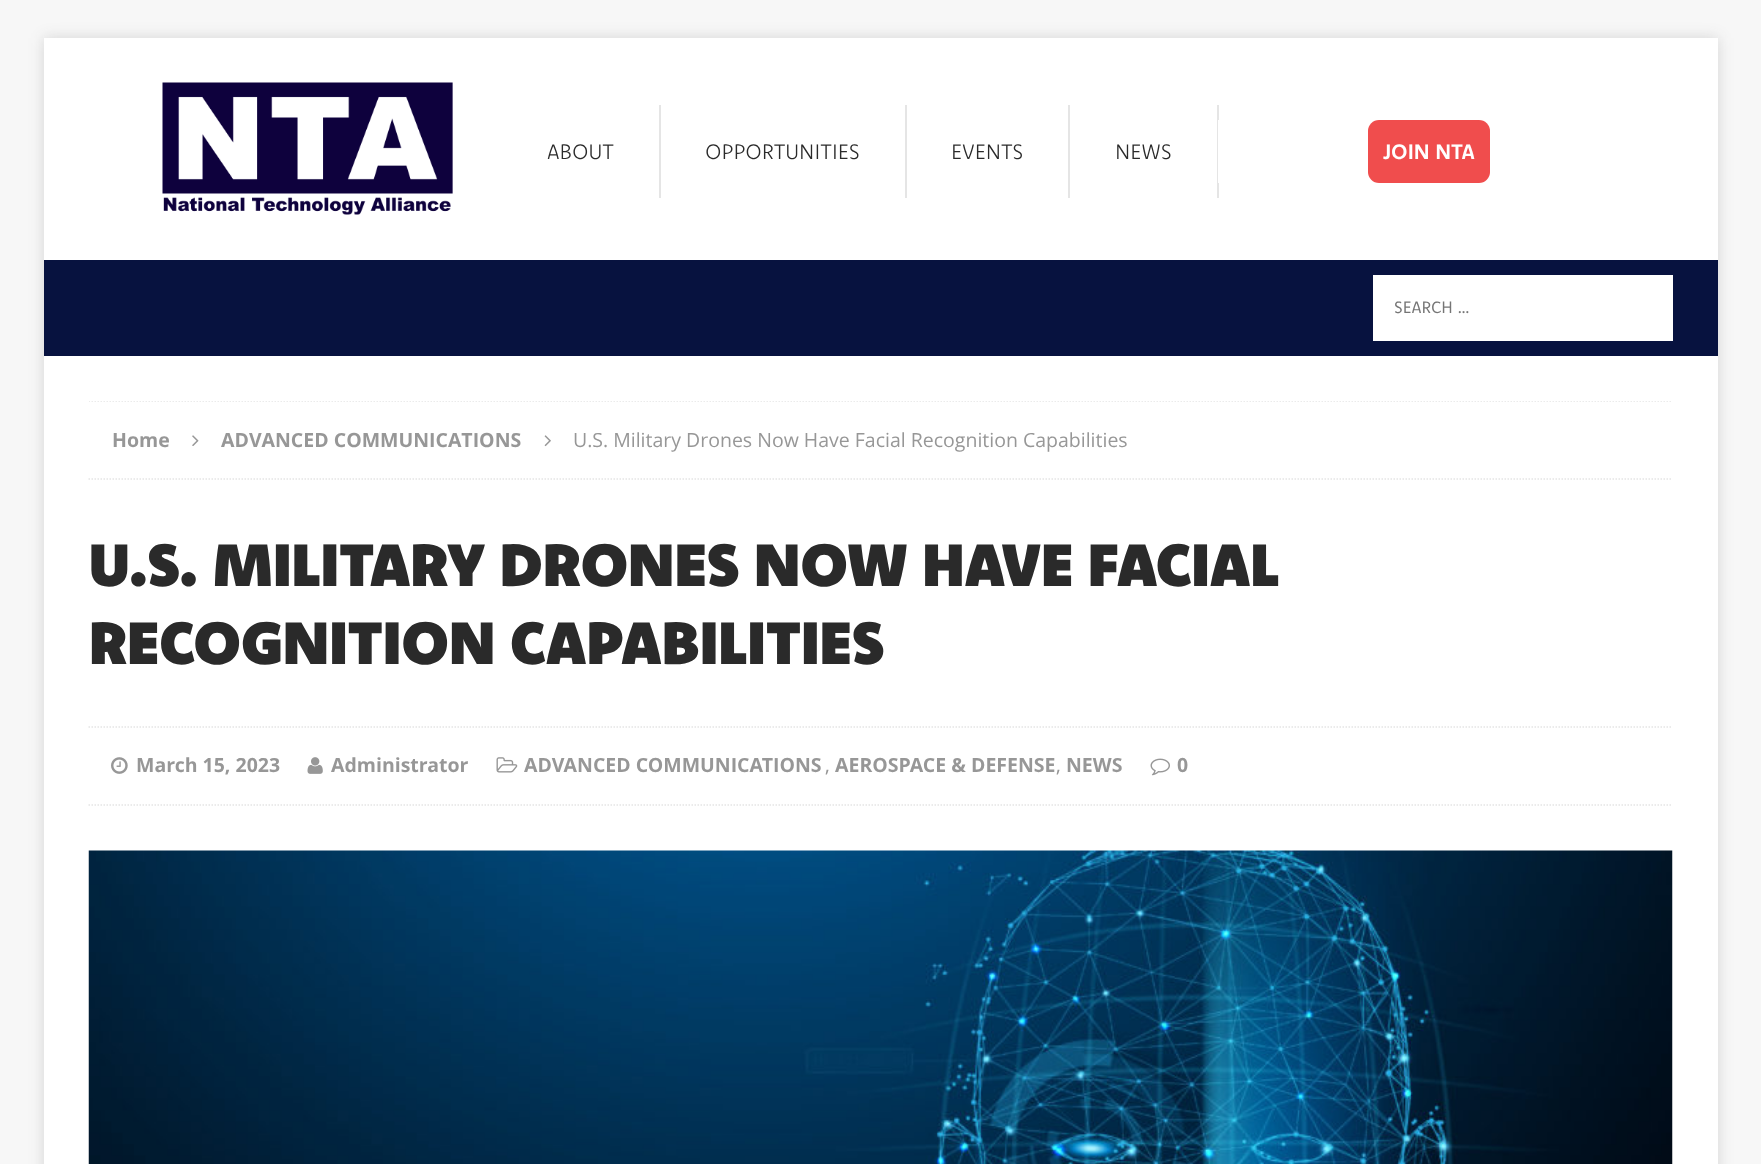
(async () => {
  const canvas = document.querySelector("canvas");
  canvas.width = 1761;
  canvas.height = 1164;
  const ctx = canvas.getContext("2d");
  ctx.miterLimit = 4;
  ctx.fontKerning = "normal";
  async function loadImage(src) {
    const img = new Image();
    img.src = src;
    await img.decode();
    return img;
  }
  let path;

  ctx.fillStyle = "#f7f7f7";
  ctx.fillRect(0, 0, 1761, 1164);
  ctx.fillStyle = "rgba(50, 50, 50, 0.17)";
  ctx.filter = "blur(7.5px)";
  ctx.beginPath();
  ctx.rect(44, 38, 1674, 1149);
  ctx.fill();
  ctx.filter = "none";
  ctx.fillStyle = "#ffffff";
  ctx.fillRect(44, 38, 1674, 222);
  ctx.drawImage(await loadImage("img/1.png"), 162, 82, 291, 133);
  for (const [x, y, w, h, color] of [
    [659, 105, 2, 93, "#e5e5e5"],
    [905, 105, 2, 93, "#e5e5e5"],
    [1068, 105, 2, 93, "#e5e5e5"],
    [1217, 105, 2, 93, "#e5e5e5"],
    [1218, 120, 1, 63, "#ffffff"],
  ]) {
    ctx.fillStyle = color;
    ctx.fillRect(x, y, w, h);
  }
  ctx.fillStyle = "#f04d4d";
  ctx.beginPath();
  ctx.roundRect(1368, 120, 122, 63, 11);
  ctx.fill();
  for (const [x, y, w, h, color] of [
    [44, 260, 1674, 96, "#07123f"],
    [1373, 275, 300, 66, "#ffffff"],
    [44, 356, 1674, 808, "#ffffff"],
  ]) {
    ctx.fillStyle = color;
    ctx.fillRect(x, y, w, h);
  }
  ctx.save();
  ctx.beginPath();
  ctx.rect(89, 401, 1584, 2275);
  ctx.clip();
  path = new Path2D("M88.5 401H1672.5");
  ctx.strokeStyle = "#e5e5e5";
  ctx.lineWidth = 1.5;
  ctx.setLineDash([1.5, 1.5]);
  ctx.stroke(path);
  ctx.restore();
  path = new Path2D("M88.5 479H1672.5");
  ctx.strokeStyle = "#e5e5e5";
  ctx.lineWidth = 1.5;
  ctx.setLineDash([1.5, 1.5]);
  ctx.stroke(path);
  ctx.drawImage(await loadImage("img/2.png"), 192, 435, 7, 11);
  ctx.drawImage(await loadImage("img/3.png"), 544, 435, 7, 12);
  path = new Path2D("M88.5 727H1672.5");
  ctx.stroke(path);
  path = new Path2D("M88.5 805H1672.5");
  ctx.stroke(path);
  ctx.drawImage(await loadImage("img/4.png"), 111, 757, 17, 17);
  ctx.drawImage(await loadImage("img/5.png"), 307, 757, 16, 17);
  ctx.drawImage(await loadImage("img/6.png"), 496, 757, 22, 16);
  ctx.drawImage(await loadImage("img/7.png"), 1150, 758, 20, 18);
  ctx.drawImage(await loadImage("img/8.png"), 88, 850, 1585, 314);
  ctx.font = "300 21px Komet";
  ctx.fillStyle = "#2a2a2a";
  for (const [text, x, y] of [
    ["ABOUT", 547, 159],
    ["OPPORTUNITIES", 705, 159],
    ["EVENTS", 951, 159],
    ["NEWS", 1115, 159],
  ]) {
    ctx.fillText(text, x, y);
  }
  ctx.font = "bold 21px Komet";
  ctx.fillStyle = "#ffffff";
  ctx.fillText("JOIN NTA", 1383, 159);
  ctx.font = "16.5px Komet";
  ctx.fillStyle = "#757575";
  ctx.fillText("SEARCH …", 1394, 313);
  ctx.font = "bold 19.5px Open Sans";
  ctx.fillStyle = "#979797";
  ctx.fillText("Home", 112, 447);
  ctx.fillText("ADVANCED COMMUNICATIONS", 221, 447);
  ctx.font = "19.5px Open Sans";
  ctx.fillText("U.S. Military Drones Now Have Facial Recognition Capabilities", 573, 447);
  ctx.font = "900 60px Komet";
  ctx.fillStyle = "#2a2a2a";
  ctx.fillText("U.S. MILITARY DRONES NOW HAVE FACIAL", 89, 586);
  ctx.fillText("RECOGNITION CAPABILITIES", 89, 664);
  ctx.font = "bold 19.5px 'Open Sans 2'";
  ctx.fillStyle = "#979797";
  for (const [text, x, y] of [
    ["March 15, 2023", 136, 772],
    ["Administrator", 331, 772],
    ["ADVANCED COMMUNICATIONS", 524, 772],
  ]) {
    ctx.fillText(text, x, y);
  }
  ctx.font = "19.5px 'Open Sans 2'";
  ctx.fillText(",", 825, 772);
  ctx.font = "bold 19.5px 'Open Sans 2'";
  ctx.fillText("AEROSPACE & DEFENSE", 835, 772);
  ctx.font = "19.5px 'Open Sans 2'";
  ctx.fillText(",", 1056, 772);
  ctx.font = "bold 19.5px 'Open Sans 2'";
  ctx.fillText("NEWS", 1066, 772);
  ctx.fillText("0", 1177, 772);
})();
